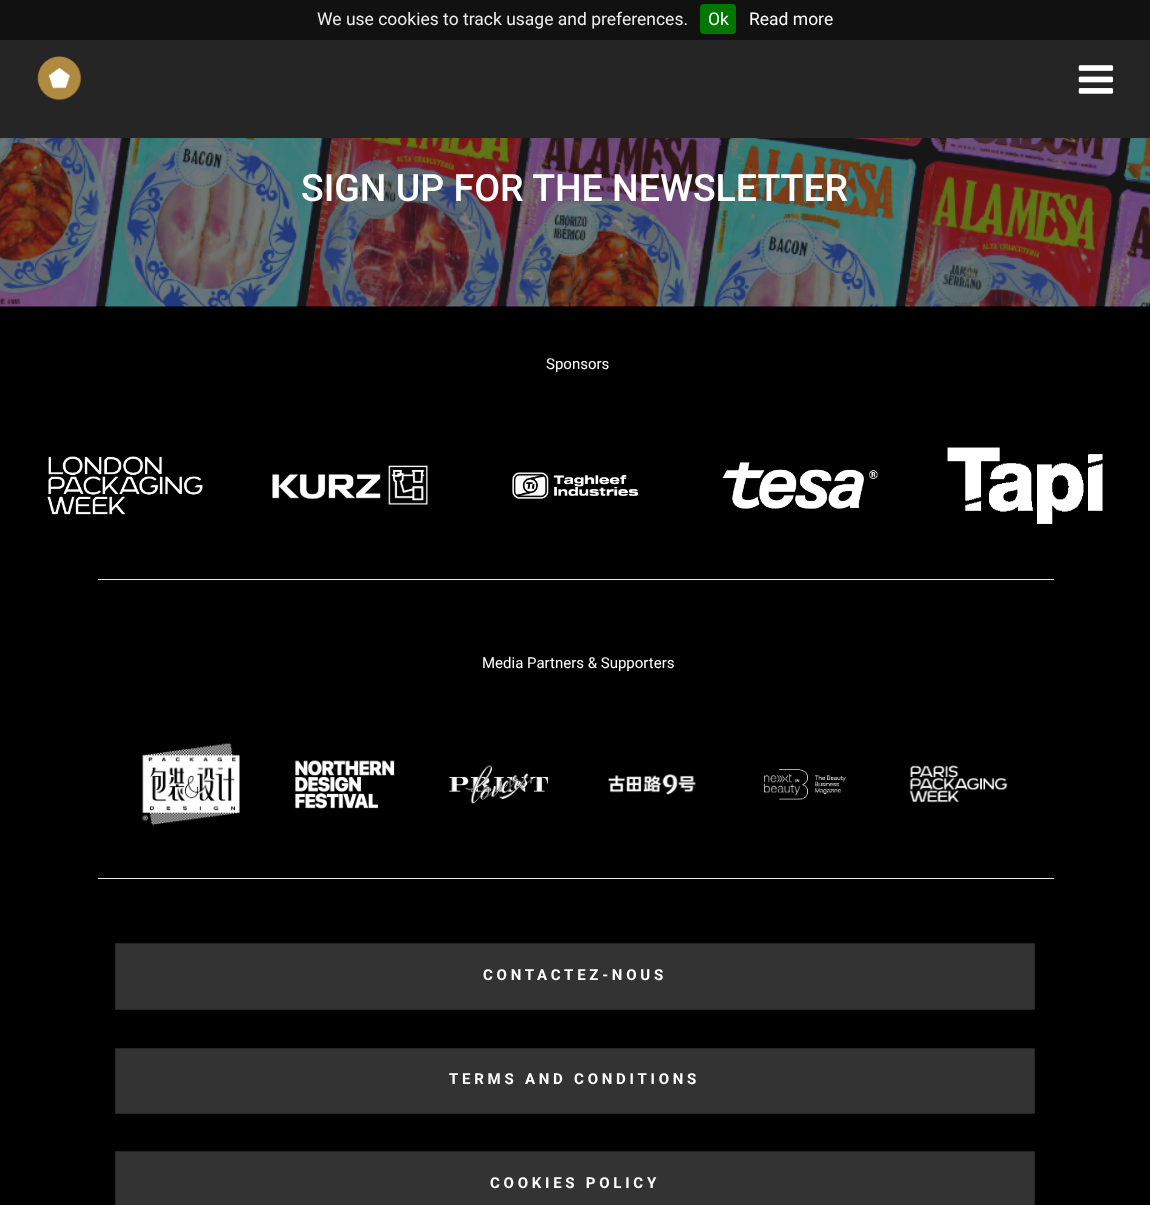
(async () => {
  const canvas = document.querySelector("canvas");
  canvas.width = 1150;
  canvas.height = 1205;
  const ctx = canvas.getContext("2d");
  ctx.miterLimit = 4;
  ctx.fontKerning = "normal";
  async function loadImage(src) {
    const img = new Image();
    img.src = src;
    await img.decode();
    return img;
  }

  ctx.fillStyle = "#000000";
  ctx.fillRect(0, 0, 1150, 1205);
  ctx.fillStyle = "#111111";
  ctx.fillRect(0, 0, 1150, 40);
  ctx.fillStyle = "#007700";
  ctx.beginPath();
  ctx.roundRect(700, 4, 36, 30, 4);
  ctx.fill();
  ctx.fillStyle = "#252525";
  ctx.fillRect(0, 40, 1150, 98);
  ctx.drawImage(await loadImage("img/1.png"), 37, 56, 45, 45);
  ctx.drawImage(await loadImage("img/2.png"), 1078, 65, 36, 29);
  ctx.drawImage(await loadImage("img/3.png"), 0, 138, 1150, 169);
  ctx.drawImage(await loadImage("img/4.png"), 47, 456, 156, 59);
  ctx.drawImage(await loadImage("img/5.png"), 272, 465, 156, 40);
  ctx.drawImage(await loadImage("img/6.png"), 512, 472, 127, 27);
  ctx.drawImage(await loadImage("img/7.png"), 722, 462, 156, 47);
  ctx.drawImage(await loadImage("img/8.png"), 947, 447, 156, 77);
  ctx.fillStyle = "#eeeeee";
  ctx.fillRect(98, 579, 956, 1);
  ctx.drawImage(await loadImage("img/9.png"), 142, 743, 98, 82);
  ctx.drawImage(await loadImage("img/10.png"), 295, 760, 100, 49);
  ctx.drawImage(await loadImage("img/11.png"), 448, 765, 100, 39);
  ctx.drawImage(await loadImage("img/12.png"), 608, 774, 88, 21);
  ctx.drawImage(await loadImage("img/13.png"), 764, 769, 82, 31);
  ctx.drawImage(await loadImage("img/14.png"), 909, 765, 99, 38);
  ctx.fillRect(98, 878, 956, 1);
  ctx.fillStyle = "#333333";
  ctx.beginPath();
  ctx.rect(115.5, 943.5, 919, 66);
  ctx.fill();
  ctx.strokeStyle = "#252525";
  ctx.stroke();
  ctx.beginPath();
  ctx.rect(115.5, 1048.5, 919, 65);
  ctx.fill();
  ctx.stroke();
  ctx.beginPath();
  ctx.rect(115.5, 1151.5, 919, 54);
  ctx.fill();
  ctx.stroke();
  ctx.font = "17.5px Roboto";
  ctx.fillStyle = "#eeeeee";
  ctx.fillText("We use cookies to track usage and preferences.", 317, 25);
  ctx.fillStyle = "#ffffff";
  ctx.fillText("Ok", 708, 25);
  ctx.fillText("Read more", 749, 25);
  ctx.font = "500 37.5px Roboto";
  ctx.fillText("SIGN UP FOR THE NEWSLETTER", 301, 201);
  ctx.font = "15px Roboto";
  ctx.fillText("Sponsors", 546, 369);
  ctx.fillText("Media Partners & Supporters", 482, 668);
  ctx.letterSpacing = "3.75px";
  ctx.font = "bold 15px Roboto";
  for (const [text, x, y] of [
    ["CONTACTEZ-NOUS", 483, 980],
    ["TERMS AND CONDITIONS", 449, 1084],
    ["COOKIES POLICY", 490, 1188],
  ]) {
    ctx.fillText(text, x, y);
  }
})();
